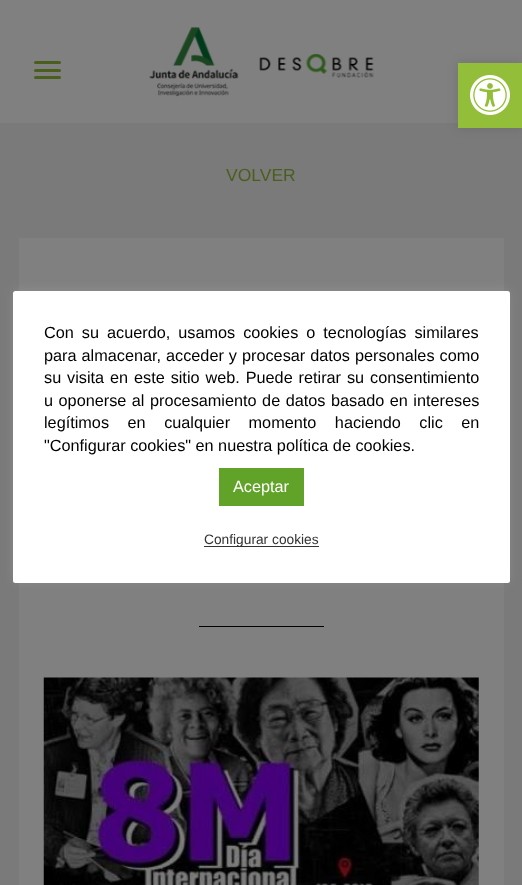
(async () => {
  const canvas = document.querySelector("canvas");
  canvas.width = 522;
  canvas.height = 885;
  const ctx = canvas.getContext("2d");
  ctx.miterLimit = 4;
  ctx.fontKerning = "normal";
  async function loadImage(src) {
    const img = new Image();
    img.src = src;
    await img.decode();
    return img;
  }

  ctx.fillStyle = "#7a7a7a";
  ctx.fillRect(0, 0, 522, 885);
  ctx.fillStyle = "#808080";
  ctx.fillRect(0, 0, 522, 123);
  ctx.fillStyle = "#4a5f1d";
  ctx.beginPath();
  ctx.roundRect(34, 61, 27, 3, 1.5);
  ctx.fill();
  ctx.beginPath();
  ctx.roundRect(34, 69, 27, 3, 1.5);
  ctx.fill();
  ctx.beginPath();
  ctx.roundRect(34, 76, 27, 3, 1.5);
  ctx.fill();
  ctx.drawImage(await loadImage("img/1.png"), 149, 27, 225, 70);
  ctx.fillStyle = "rgba(0, 0, 0, 0.1)";
  ctx.filter = "blur(6px)";
  ctx.beginPath();
  ctx.rect(458, 63, 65, 65);
  ctx.fill();
  ctx.filter = "none";
  ctx.fillStyle = "#93be3a";
  ctx.fillRect(458, 63, 64, 65);
  ctx.drawImage(await loadImage("img/2.png"), 470, 75, 40, 40);
  ctx.fillStyle = "#808080";
  ctx.fillRect(19, 238, 485, 647);
  ctx.fillStyle = "#000000";
  ctx.fillRect(199, 626, 125, 1);
  ctx.drawImage(await loadImage("img/3.png"), 43, 677, 436, 208);
  ctx.fillStyle = "rgba(172, 171, 171, 0.3)";
  ctx.filter = "blur(6px)";
  ctx.beginPath();
  ctx.roundRect(13, 290, 497, 291, 2.5);
  ctx.fill();
  ctx.filter = "none";
  ctx.fillStyle = "#ffffff";
  ctx.beginPath();
  ctx.roundRect(13, 291, 497, 292, 2.5);
  ctx.fill();
  ctx.fillStyle = "#61a229";
  ctx.fillRect(219, 468, 85, 38);
  ctx.fillStyle = "#333333";
  ctx.fillRect(204, 546, 115, 1);
  ctx.font = "17.5px Liberation Sans";
  ctx.fillStyle = "#4a5f1d";
  ctx.fillText("VOLVER", 226, 181);
  ctx.wordSpacing = "3.5px";
  ctx.font = "16.25px Liberation Sans";
  ctx.fillStyle = "#000000";
  ctx.fillText("Con su acuerdo, usamos cookies o tecnologías similares", 44, 338);
  ctx.wordSpacing = "0.5px";
  ctx.fillText("para almacenar, acceder y procesar datos personales como", 44, 361);
  ctx.wordSpacing = "1.4px";
  ctx.fillText("su visita en este sitio web. Puede retirar su consentimiento", 44, 383);
  ctx.wordSpacing = "1px";
  ctx.fillText("u oponerse al procesamiento de datos basado en intereses", 44, 406);
  ctx.wordSpacing = "14px";
  ctx.fillText("legítimos en cualquier momento haciendo clic en", 44, 428);
  ctx.wordSpacing = "0px";
  ctx.fillText("\"Configurar cookies\" en nuestra política de cookies.", 44, 451);
  ctx.fillStyle = "#ffffff";
  ctx.fillText("Aceptar", 233, 492);
  ctx.font = "13.75px Liberation Sans";
  ctx.fillStyle = "#333333";
  ctx.fillText("Configurar cookies", 204, 544);
})();
